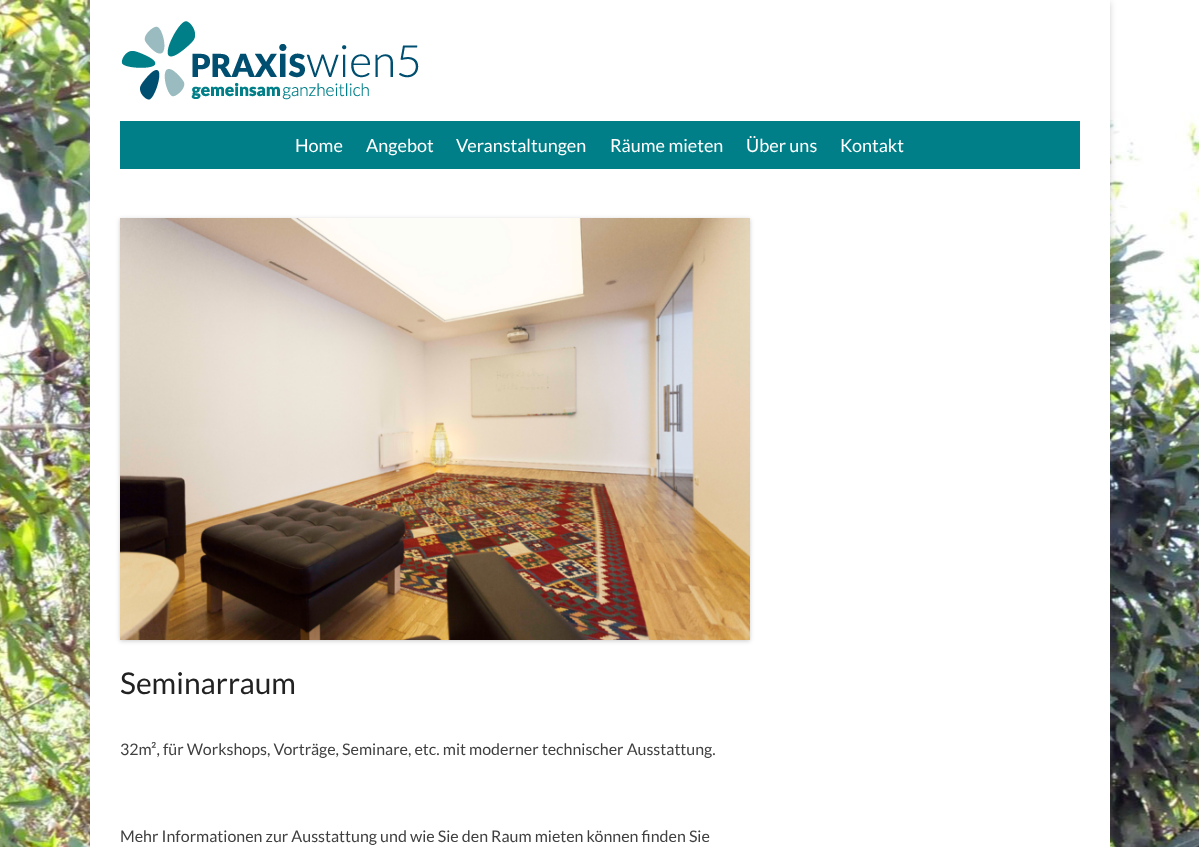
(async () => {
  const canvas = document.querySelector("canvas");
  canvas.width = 1199;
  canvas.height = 847;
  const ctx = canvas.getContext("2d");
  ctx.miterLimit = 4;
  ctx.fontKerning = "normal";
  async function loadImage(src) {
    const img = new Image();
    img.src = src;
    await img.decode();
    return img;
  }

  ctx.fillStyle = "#ffffff";
  ctx.fillRect(0, 0, 1199, 847);
  ctx.drawImage(await loadImage("img/1.png"), 0, 0, 1199, 847);
  ctx.fillStyle = "rgba(100, 100, 100, 0.3)";
  ctx.filter = "blur(3px)";
  ctx.beginPath();
  ctx.rect(90, 2, 1020, 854);
  ctx.fill();
  ctx.filter = "none";
  ctx.fillStyle = "#ffffff";
  ctx.fillRect(90, 0, 1020, 847);
  ctx.drawImage(await loadImage("img/2.png"), 121, 21, 298, 79);
  ctx.fillStyle = "#007f88";
  ctx.fillRect(120, 121, 960, 48);
  ctx.fillStyle = "rgba(0, 0, 0, 0.2)";
  ctx.filter = "blur(2px)";
  ctx.beginPath();
  ctx.rect(120, 219, 630, 422);
  ctx.fill();
  ctx.filter = "none";
  ctx.drawImage(await loadImage("img/3.png"), 120, 218, 630, 422);
  ctx.font = "18px Lato";
  ctx.fillStyle = "#ffffff";
  for (const [text, x, y] of [
    ["Home", 295, 152],
    ["Angebot", 366, 152],
    ["Veranstaltungen", 456, 152],
    ["Räume mieten", 610, 152],
    ["Über uns", 746, 152],
    ["Kontakt", 840, 152],
  ]) {
    ctx.fillText(text, x, y);
  }
  ctx.font = "30px Lato";
  ctx.fillStyle = "#222222";
  ctx.fillText("Seminarraum", 120, 694);
  ctx.font = "16px Lato";
  ctx.fillStyle = "#404040";
  ctx.fillText("32m², für Workshops, Vorträge, Seminare, etc. mit moderner technischer Ausstattung.", 120, 755);
  ctx.fillText("Mehr Informationen zur Ausstattung und wie Sie den Raum mieten können finden Sie", 120, 842);
})();
